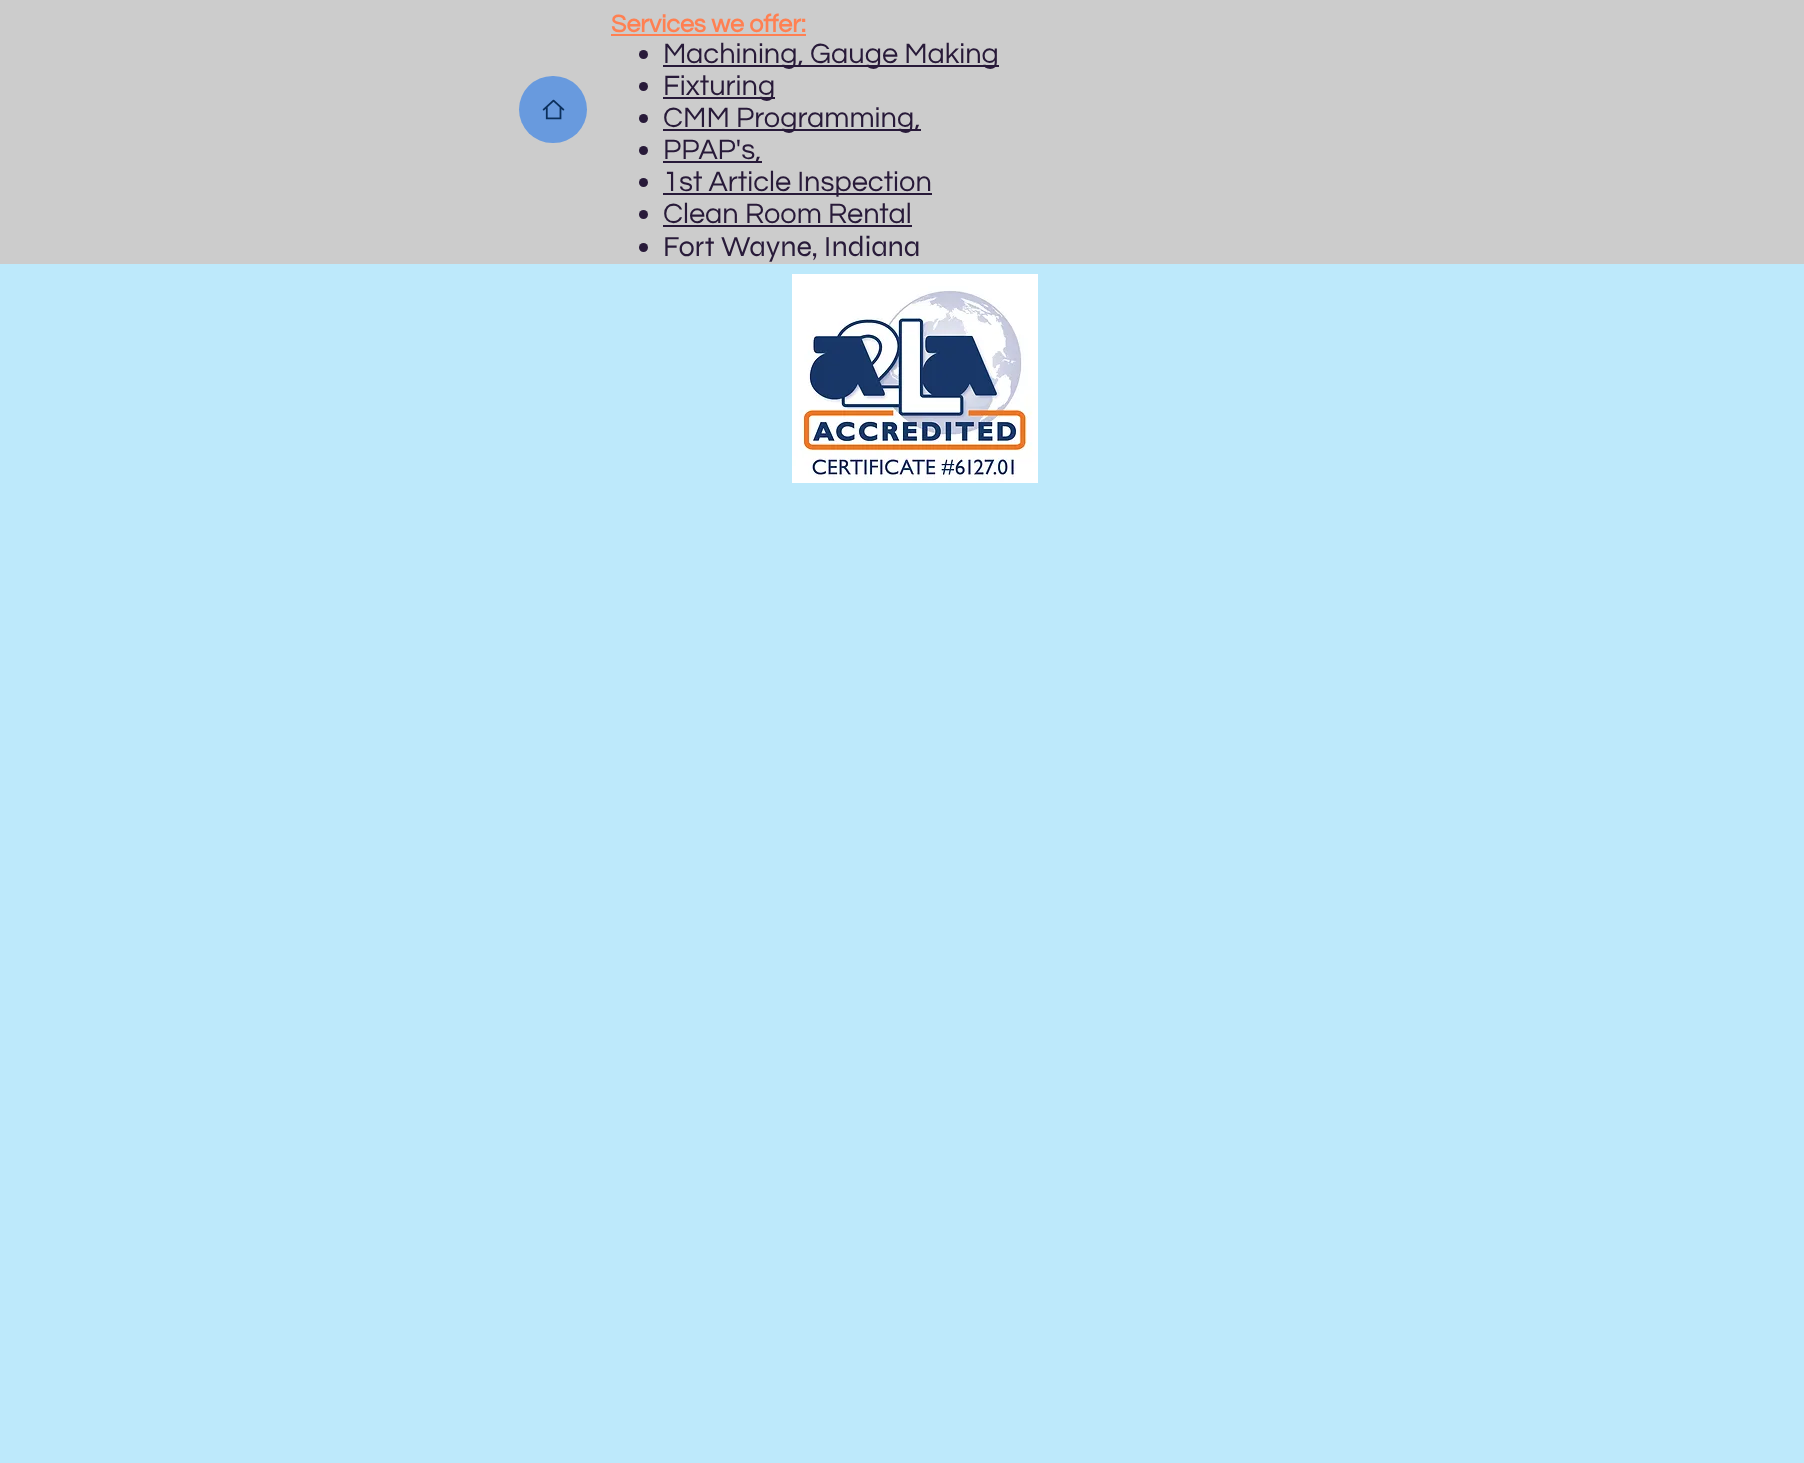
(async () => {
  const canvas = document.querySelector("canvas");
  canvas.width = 1804;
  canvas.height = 1463;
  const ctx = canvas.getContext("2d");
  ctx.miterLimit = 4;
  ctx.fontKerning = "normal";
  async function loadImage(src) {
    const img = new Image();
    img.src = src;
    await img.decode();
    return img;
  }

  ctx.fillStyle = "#bde9fb";
  ctx.fillRect(0, 0, 1804, 1463);
  ctx.fillStyle = "#cccccc";
  ctx.fillRect(0, 0, 1804, 264);
  ctx.fillStyle = "#689ade";
  ctx.beginPath();
  ctx.roundRect(519, 76, 68, 67, 33.5);
  ctx.fill();
  ctx.drawImage(await loadImage("img/1.png"), 542, 99, 23, 21);
  ctx.fillStyle = "#ff8052";
  ctx.fillRect(611, 34, 195, 2);
  ctx.fillStyle = "#281a39";
  ctx.beginPath();
  ctx.arc(643.5, 54.5, 4.5, 0, Math.PI * 2);
  ctx.fill();
  ctx.fillRect(663, 65, 336, 2);
  ctx.beginPath();
  ctx.arc(643.5, 86.5, 4.5, 0, Math.PI * 2);
  ctx.fill();
  ctx.fillRect(663, 97, 112, 2);
  ctx.beginPath();
  ctx.arc(643.5, 118.5, 4.5, 0, Math.PI * 2);
  ctx.fill();
  ctx.fillRect(663, 129, 258, 2);
  ctx.beginPath();
  ctx.arc(643.5, 150.5, 4.5, 0, Math.PI * 2);
  ctx.fill();
  ctx.fillRect(663, 161, 99, 2);
  ctx.beginPath();
  ctx.arc(643.5, 182.5, 4.5, 0, Math.PI * 2);
  ctx.fill();
  ctx.fillRect(663, 193, 269, 2);
  ctx.beginPath();
  ctx.arc(643.5, 214.5, 4.5, 0, Math.PI * 2);
  ctx.fill();
  ctx.fillRect(663, 225, 249, 2);
  ctx.beginPath();
  ctx.arc(643.5, 247.5, 4.5, 0, Math.PI * 2);
  ctx.fill();
  ctx.drawImage(await loadImage("img/2.png"), 792, 274, 246, 209);
  ctx.font = "bold 25px Questrial";
  ctx.fillStyle = "#ff8052";
  ctx.fillText("Services we offer:", 611, 32);
  ctx.font = "29px Questrial";
  ctx.fillStyle = "#281a39";
  for (const [text, x, y] of [
    ["Machining, Gauge Making", 663, 63],
    ["Fixturing", 663, 95],
    ["CMM Programming,", 663, 127],
    ["PPAP's,", 663, 159],
    ["1st Article Inspection", 663, 191],
    ["Clean Room Rental", 663, 223],
  ]) {
    ctx.fillText(text, x, y);
  }
  ctx.font = "29px Syne";
  ctx.fillText("Fort Wayne, Indiana", 663, 256);
})();
